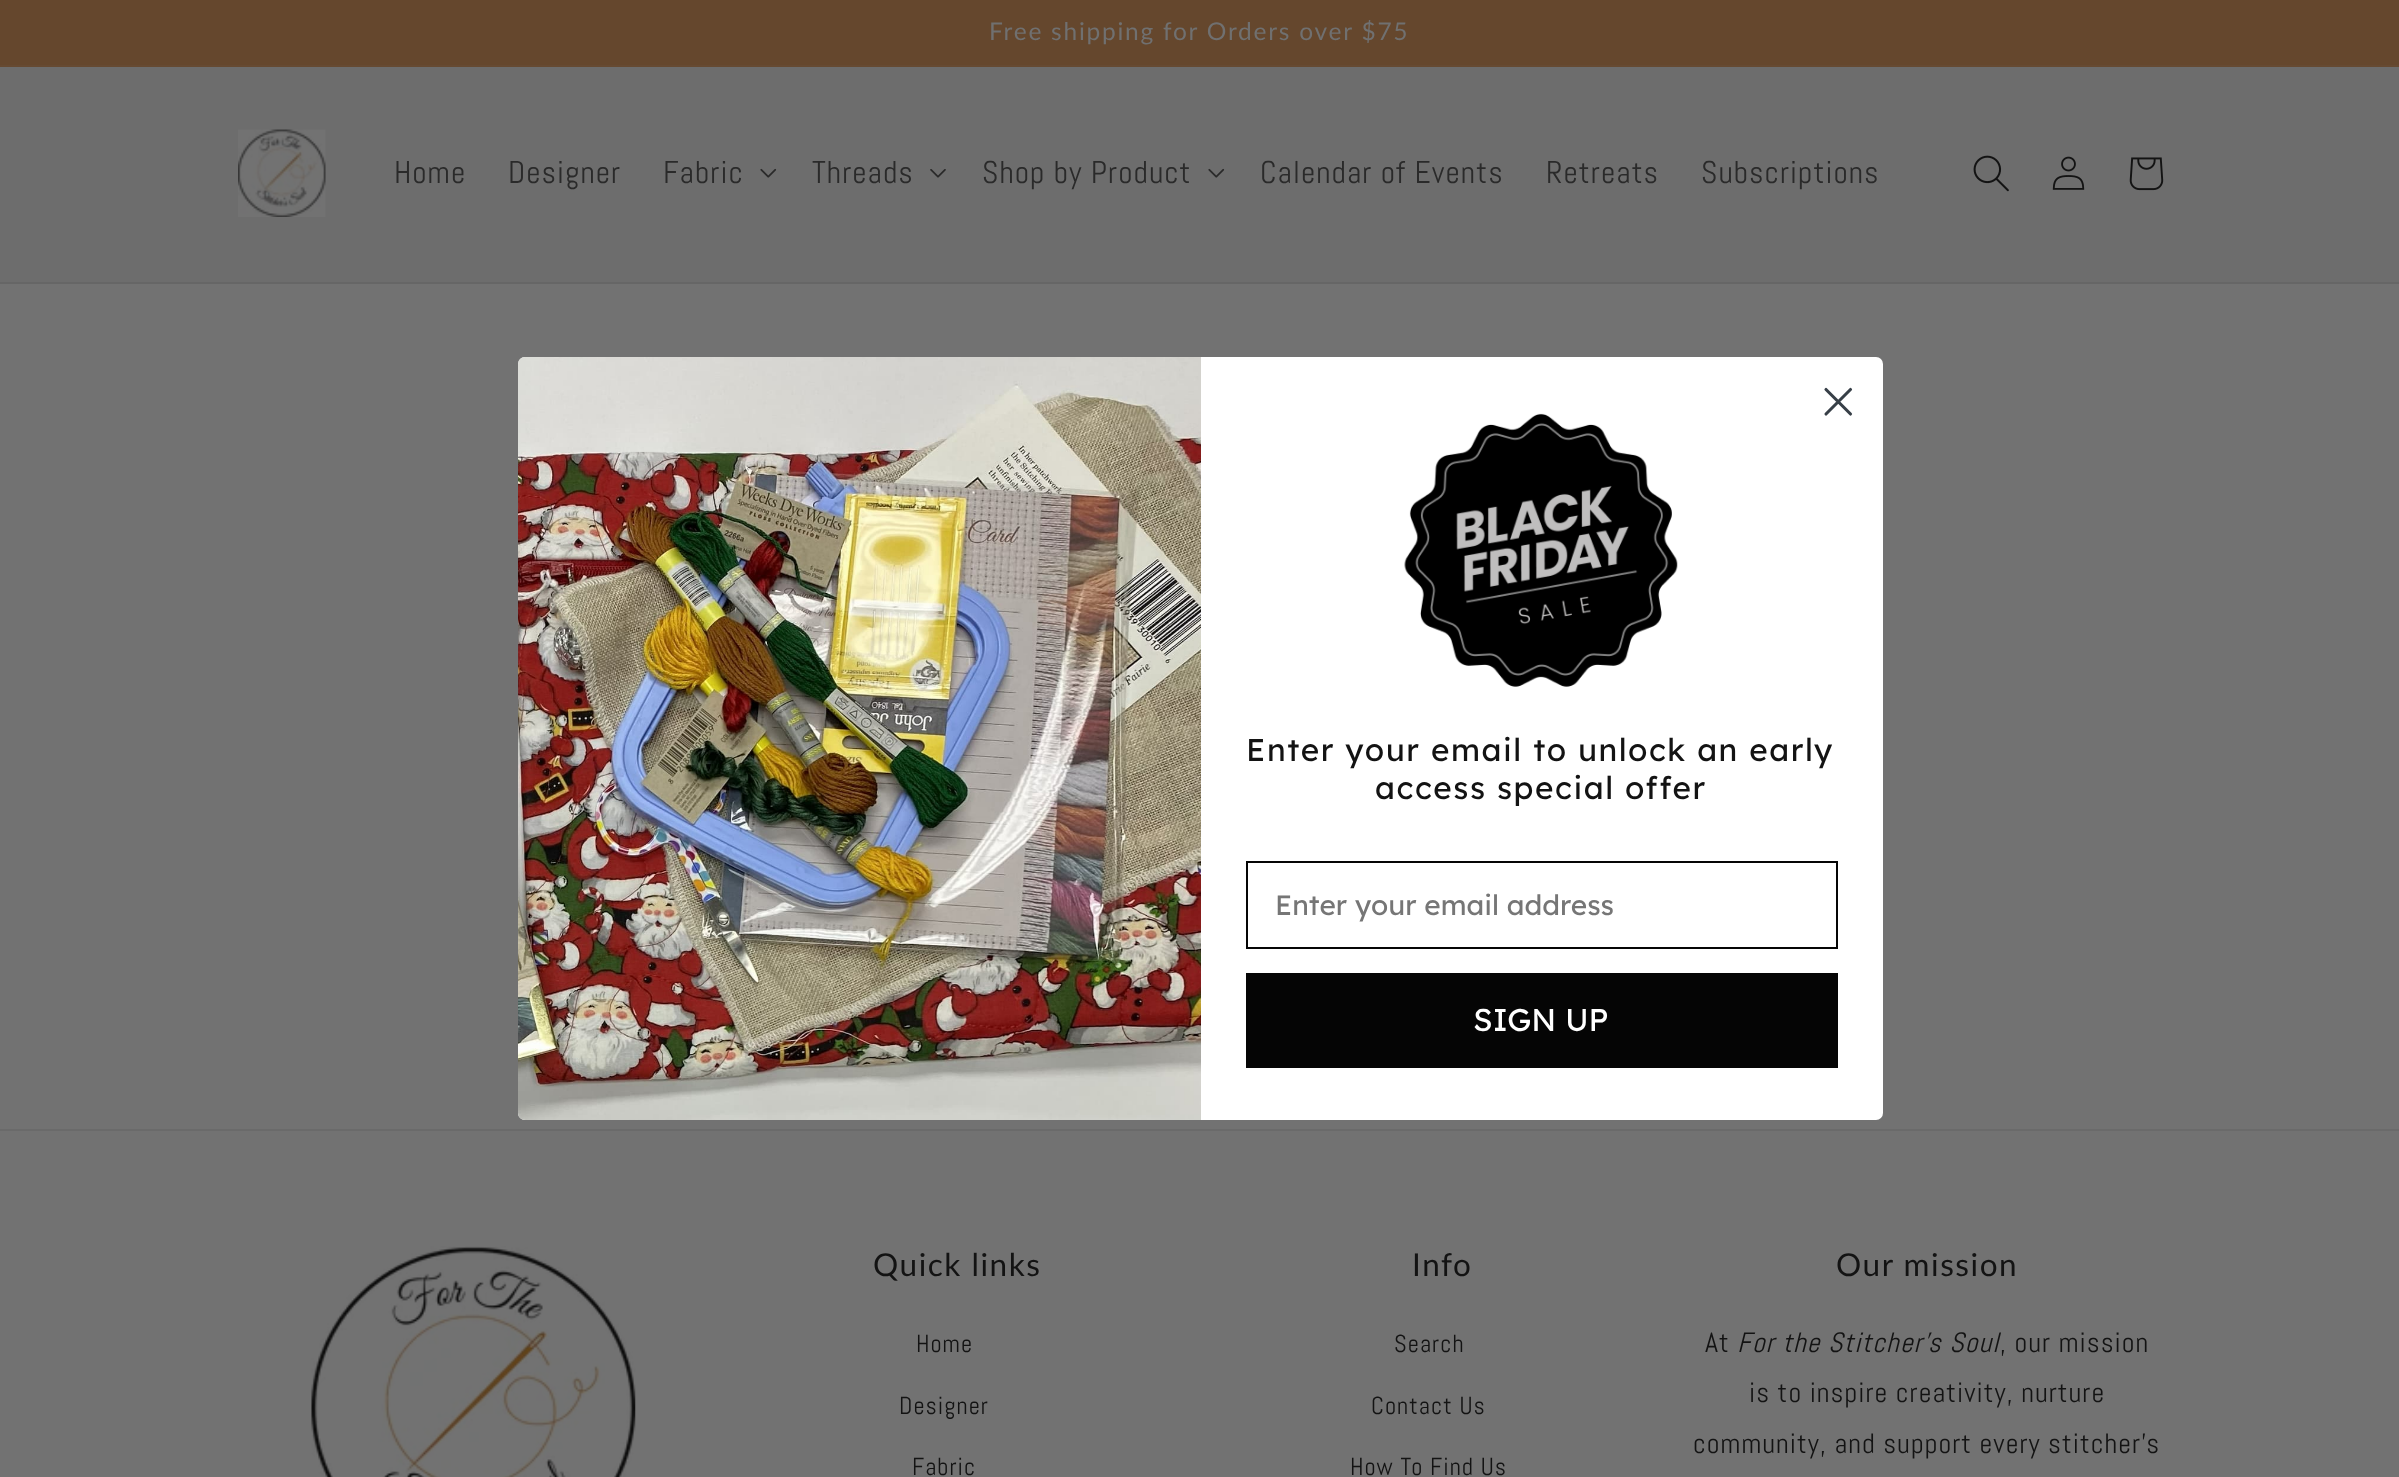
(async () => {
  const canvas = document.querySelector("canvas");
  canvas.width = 2399;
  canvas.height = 1477;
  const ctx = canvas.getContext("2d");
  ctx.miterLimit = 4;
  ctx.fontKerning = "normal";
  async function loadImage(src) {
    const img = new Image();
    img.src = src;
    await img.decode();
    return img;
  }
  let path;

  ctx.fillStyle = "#727272";
  ctx.fillRect(0, 0, 2399, 1477);
  for (const [x, y, w, h, color] of [
    [0, 0, 2399, 65, "#65472d"],
    [0, 65, 2399, 2, "#664a32"],
    [0, 67, 2399, 215, "#6d6d6d"],
    [0, 282, 2399, 2, "#666666"],
  ]) {
    ctx.fillStyle = color;
    ctx.fillRect(x, y, w, h);
  }
  ctx.drawImage(await loadImage("img/1.png"), 238, 129, 88, 88);
  ctx.drawImage(await loadImage("img/2.png"), 760, 168, 17, 10);
  ctx.drawImage(await loadImage("img/3.png"), 930, 169, 16, 9);
  ctx.drawImage(await loadImage("img/2.png"), 1208, 168, 17, 10);
  ctx.drawImage(await loadImage("img/4.png"), 1973, 155, 36, 37);
  ctx.drawImage(await loadImage("img/5.png"), 2052, 156, 33, 34);
  ctx.drawImage(await loadImage("img/6.png"), 2129, 157, 35, 34);
  ctx.fillStyle = "#ffffff";
  ctx.beginPath();
  ctx.roundRect(518, 357, 1365, 763, 7);
  ctx.fill();
  path = new Path2D("M1826 389.5L1850.5 414M1826 414L1850.5 389.5Z");
  ctx.strokeStyle = "#373f47";
  ctx.lineWidth = 3.1;
  ctx.lineCap = "round";
  ctx.lineJoin = "round";
  ctx.stroke(path);
  ctx.drawImage(await loadImage("img/7.png"), 518, 357, 683, 763);
  ctx.drawImage(await loadImage("img/8.png"), 1404, 413, 274, 274);
  ctx.strokeStyle = "#050505";
  ctx.lineWidth = 2;
  ctx.lineJoin = "miter";
  ctx.strokeRect(1247, 862, 590, 86);
  ctx.fillStyle = "#050505";
  ctx.fillRect(1246, 973, 592, 95);
  ctx.fillStyle = "#6a6a6a";
  ctx.fillRect(0, 1129, 2399, 2);
  ctx.drawImage(await loadImage("img/9.png"), 311, 1246, 325, 231);
  ctx.letterSpacing = "1.75px";
  ctx.font = "24.5px Lato";
  ctx.fillStyle = "#707070";
  ctx.fillText("Free shipping for Orders over $75", 989, 40);
  ctx.letterSpacing = "1.05px";
  ctx.font = "31.5px Abel";
  ctx.fillStyle = "#2a2a2a";
  for (const [text, x, y] of [
    ["Home", 394, 183],
    ["Designer", 508, 183],
    ["Fabric", 663, 183],
    ["Threads", 812, 183],
    ["Shop by Product", 982, 183],
    ["Calendar of Events", 1260, 183],
    ["Retreats", 1546, 183],
    ["Subscriptions", 1701, 183],
  ]) {
    ctx.fillText(text, x, y);
  }
  ctx.letterSpacing = "1.55px";
  ctx.font = "31.5px Lexend";
  ctx.fillStyle = "#131313";
  ctx.fillText("Enter your email to unlock an early", 1246, 761);
  ctx.fillText("access special offer", 1375, 799);
  ctx.letterSpacing = "0px";
  ctx.font = "28px Lexend";
  ctx.fillStyle = "#767676";
  ctx.fillText("Enter your email address", 1275, 915);
  ctx.font = "31.5px Lexend";
  ctx.fillStyle = "#ffffff";
  ctx.fillText("SIGN UP", 1473, 1031);
  ctx.letterSpacing = "1.55px";
  ctx.font = "31.5px Lato";
  ctx.fillStyle = "#131313";
  ctx.fillText("Quick links", 873, 1276);
  ctx.letterSpacing = "1.05px";
  ctx.font = "24.5px Abel";
  for (const [text, x, y] of [
    ["Home", 916, 1352],
    ["Designer", 899, 1414],
    ["Fabric", 912, 1475],
  ]) {
    ctx.fillText(text, x, y);
  }
  ctx.letterSpacing = "1.55px";
  ctx.font = "31.5px Lato";
  ctx.fillText("Info", 1412, 1276);
  ctx.letterSpacing = "1.05px";
  ctx.font = "24.5px Abel";
  for (const [text, x, y] of [
    ["Search", 1394, 1352],
    ["Contact Us", 1371, 1414],
    ["How To Find Us", 1350, 1475],
  ]) {
    ctx.fillText(text, x, y);
  }
  ctx.letterSpacing = "1.55px";
  ctx.font = "31.5px Lato";
  ctx.fillText("Our mission", 1836, 1276);
  ctx.letterSpacing = "1.05px";
  ctx.font = "28px Abel";
  ctx.fillText("At", 1705, 1352);
  ctx.font = "italic 28px Abel";
  ctx.fillText("For the Stitcher’s Soul", 1737, 1352);
  ctx.font = "28px Abel";
  for (const [text, x, y] of [
    [", our mission", 2000, 1352],
    ["is to inspire creativity, nurture", 1749, 1402],
    ["community, and support every stitcher’s", 1693, 1453],
  ]) {
    ctx.fillText(text, x, y);
  }
})();
